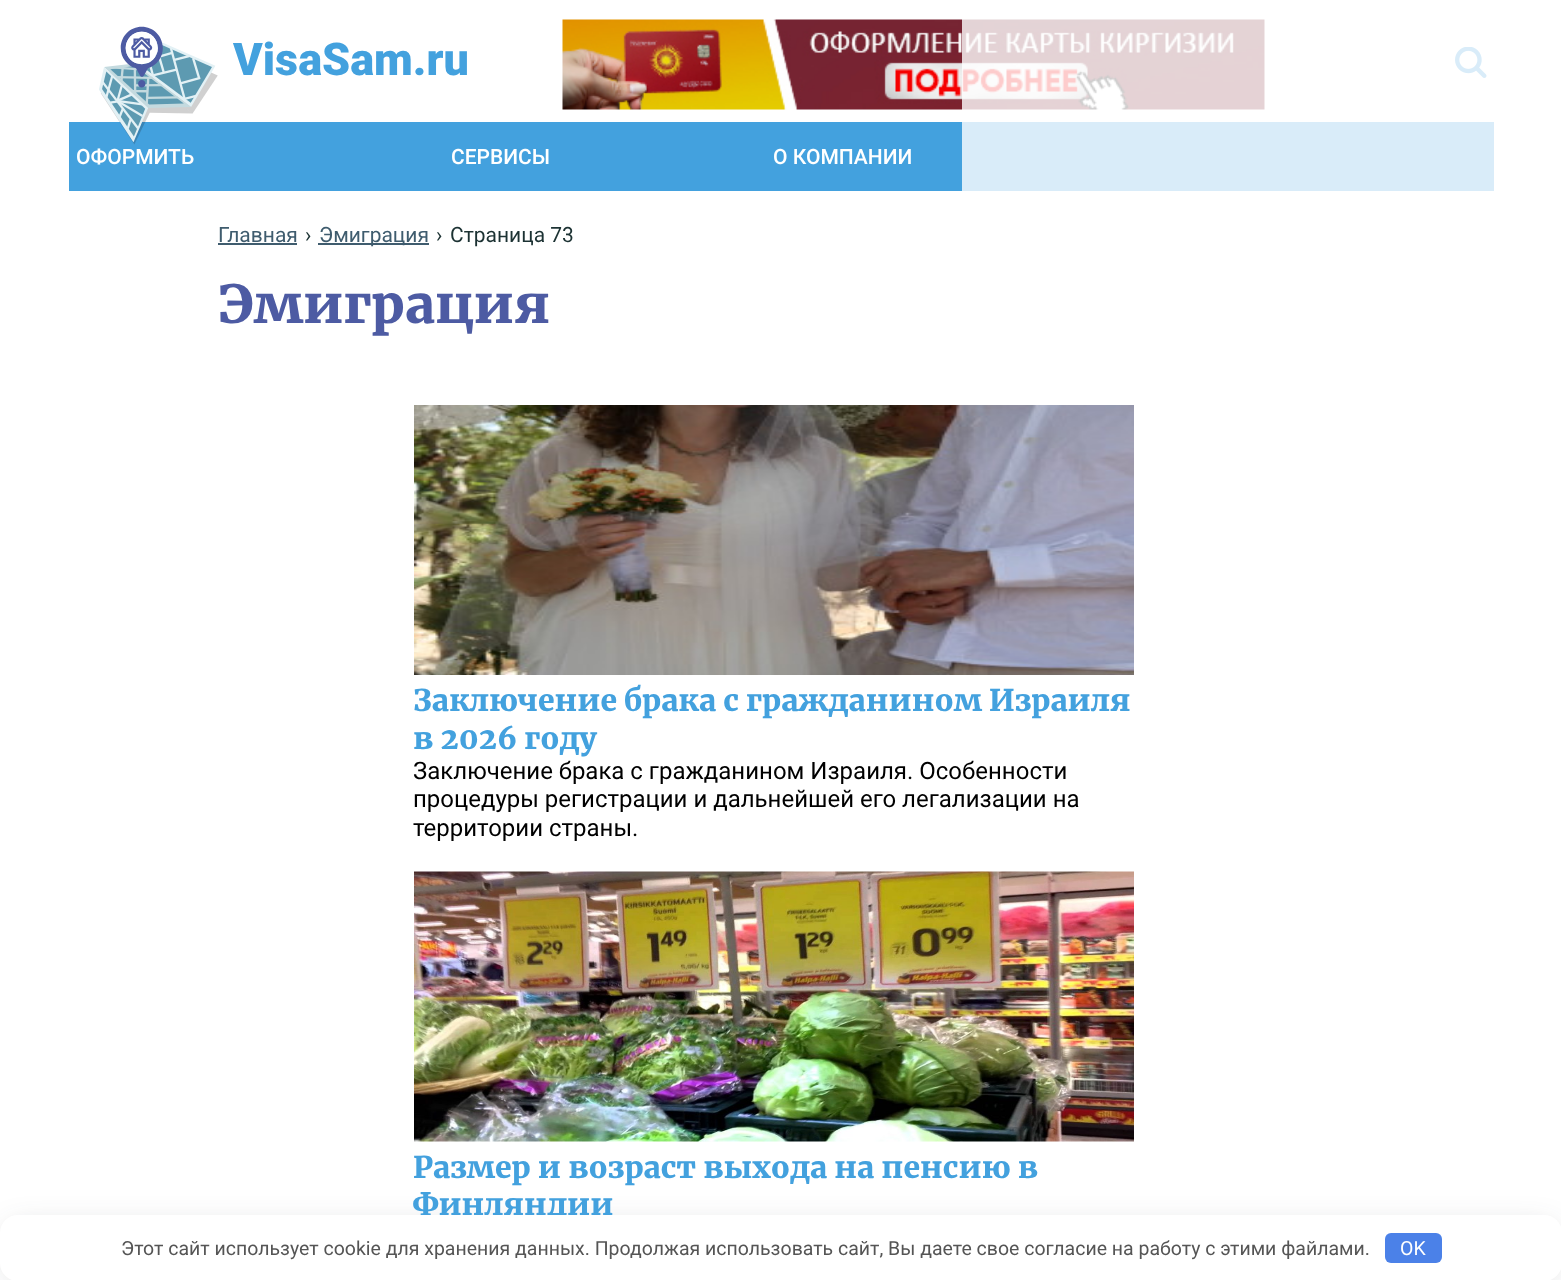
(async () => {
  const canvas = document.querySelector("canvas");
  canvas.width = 1561;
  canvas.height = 1280;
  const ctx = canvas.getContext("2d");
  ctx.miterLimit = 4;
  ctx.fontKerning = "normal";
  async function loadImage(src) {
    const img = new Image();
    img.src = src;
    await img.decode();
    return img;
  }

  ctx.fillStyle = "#ffffff";
  ctx.fillRect(0, 0, 1561, 1280);
  ctx.fillStyle = "#43a1de";
  ctx.fillRect(69, 122, 1425, 69);
  ctx.drawImage(await loadImage("img/1.png"), 99, 26, 119, 119);
  ctx.drawImage(await loadImage("img/2.png"), 562, 19, 703, 91);
  ctx.drawImage(await loadImage("img/3.png"), 1455, 47, 32, 31);
  for (const [x, y, w, h, color] of [
    [962, 19, 532, 172, "rgba(255, 255, 255, 0.8)"],
    [218, 243, 79, 2, "#3f5c6e"],
    [318, 243, 111, 2, "#3f5c6e"],
  ]) {
    ctx.fillStyle = color;
    ctx.fillRect(x, y, w, h);
  }
  ctx.drawImage(await loadImage("img/4.png"), 414, 405, 720, 270);
  ctx.drawImage(await loadImage("img/5.png"), 414, 871, 720, 271);
  ctx.fillStyle = "rgba(41, 44, 56, 0.2)";
  ctx.filter = "blur(15px)";
  ctx.beginPath();
  ctx.roundRect(8, 1227, 1546, 51, 11);
  ctx.fill();
  ctx.filter = "none";
  ctx.font = "900 45px Roboto";
  ctx.fillStyle = "#43a1de";
  ctx.fillText("VisaSam.ru", 233, 75);
  ctx.font = "500 21px Roboto";
  ctx.fillStyle = "#ffffff";
  for (const [text, x, y] of [
    ["ОФОРМИТЬ", 76, 164],
    ["СЕРВИСЫ", 451, 164],
    ["О КОМПАНИИ", 773, 164],
  ]) {
    ctx.fillText(text, x, y);
  }
  ctx.font = "21px Roboto";
  ctx.fillStyle = "#3f5c6e";
  ctx.fillText("Главная", 218, 242);
  ctx.fillStyle = "#1c3233";
  ctx.fillText("›", 305, 242);
  ctx.fillStyle = "#3f5c6e";
  ctx.fillText("Эмиграция", 319, 242);
  ctx.fillStyle = "#1c3233";
  ctx.fillText("›", 436, 242);
  ctx.fillText("Страница 73", 450, 242);
  ctx.font = "900 52.5px Merriweather";
  ctx.fillStyle = "#4d5ba3";
  ctx.fillText("Эмиграция", 218, 323);
  ctx.font = "900 30px Merriweather";
  ctx.fillStyle = "#43a1de";
  ctx.fillText("Заключение брака с гражданином Израиля", 413, 711);
  ctx.fillText("в 2026 году", 413, 749);
  ctx.font = "24px Roboto";
  ctx.fillStyle = "#000000";
  for (const [text, x, y] of [
    ["Заключение брака с гражданином Израиля. Особенности", 413, 779],
    ["процедуры регистрации и дальнейшей его легализации на", 413, 807],
    ["территории страны.", 413, 836],
  ]) {
    ctx.fillText(text, x, y);
  }
  ctx.font = "900 30px Merriweather";
  ctx.fillStyle = "#43a1de";
  ctx.fillText("Размер и возраст выхода на пенсию в", 413, 1178);
  ctx.fillText("Финляндии", 413, 1215);
  ctx.fillStyle = "#ffffff";
  ctx.beginPath();
  ctx.roundRect(0, 1215, 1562, 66, 18);
  ctx.fill();
  ctx.font = "19.5px Roboto";
  ctx.fillStyle = "#555555";
  ctx.fillText("Этот сайт использует cookie для хранения данных. Продолжая использовать сайт, Вы даете свое согласие на работу с этими файлами.", 121, 1255);
  ctx.fillStyle = "#4b81e8";
  ctx.beginPath();
  ctx.roundRect(1385, 1233, 57, 30, 6);
  ctx.fill();
  ctx.fillStyle = "#ffffff";
  ctx.fillText("OK", 1400, 1255);
})();
